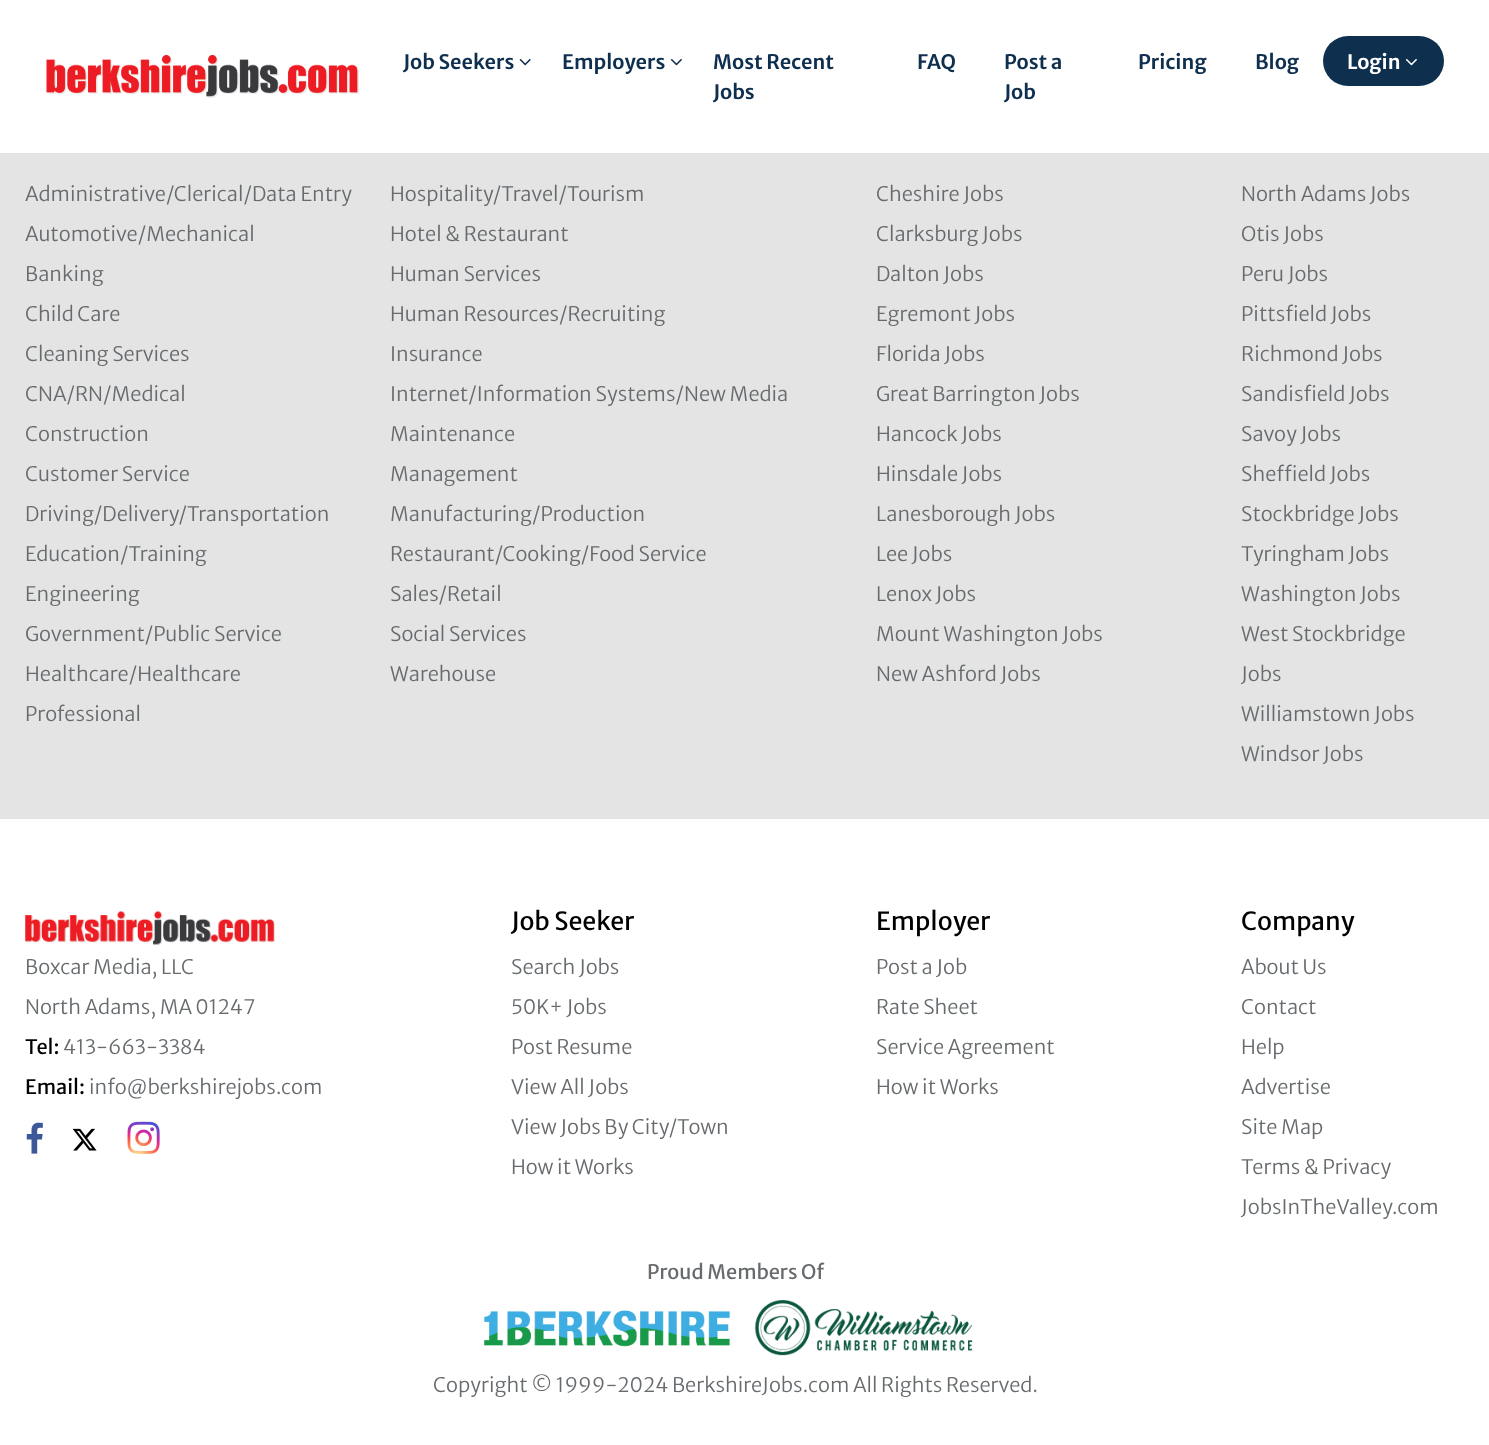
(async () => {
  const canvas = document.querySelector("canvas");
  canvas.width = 1489;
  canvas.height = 1445;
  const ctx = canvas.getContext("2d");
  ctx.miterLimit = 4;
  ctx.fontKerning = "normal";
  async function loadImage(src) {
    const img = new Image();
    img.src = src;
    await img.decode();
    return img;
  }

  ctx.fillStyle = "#ffffff";
  ctx.fillRect(0, 0, 1489, 1445);
  ctx.drawImage(await loadImage("img/1.png"), 46, 55, 313, 43);
  ctx.drawImage(await loadImage("img/2.png"), 519, 58, 12, 8);
  ctx.drawImage(await loadImage("img/3.png"), 670, 58, 12, 8);
  ctx.fillStyle = "#0f2f4f";
  ctx.beginPath();
  ctx.roundRect(1323, 36, 121, 50, 25);
  ctx.fill();
  ctx.drawImage(await loadImage("img/4.png"), 1405, 58, 12, 8);
  ctx.fillStyle = "#e4e4e4";
  ctx.fillRect(0, 153, 1489, 666);
  ctx.drawImage(await loadImage("img/5.png"), 25, 911, 250, 35);
  ctx.drawImage(await loadImage("img/6.png"), 26, 1122, 17, 32);
  ctx.drawImage(await loadImage("img/7.png"), 72, 1128, 25, 23);
  ctx.drawImage(await loadImage("img/8.png"), 127, 1121, 33, 33);
  ctx.drawImage(await loadImage("img/9.png"), 484, 1310, 247, 37);
  ctx.drawImage(await loadImage("img/10.png"), 754, 1300, 219, 56);
  ctx.font = "600 20px Merriweather Sans";
  ctx.fillStyle = "#0f2f4f";
  for (const [text, x, y] of [
    ["Job Seekers", 403, 69],
    ["Employers", 562, 69],
    ["Most Recent", 713, 69],
    ["Jobs", 713, 99],
    ["FAQ", 917, 69],
    ["Post a", 1004, 69],
    ["Job", 1004, 99],
    ["Pricing", 1138, 69],
    ["Blog", 1255, 69],
  ]) {
    ctx.fillText(text, x, y);
  }
  ctx.fillStyle = "#ffffff";
  ctx.fillText("Login", 1347, 69);
  ctx.font = "300 20px Merriweather Sans";
  ctx.fillStyle = "#676b6e";
  for (const [text, x, y] of [
    ["Administrative/Clerical/Data Entry", 25, 201],
    ["Automotive/Mechanical", 25, 241],
    ["Banking", 25, 281],
    ["Child Care", 25, 321],
    ["Cleaning Services", 25, 361],
    ["CNA/RN/Medical", 25, 401],
    ["Construction", 25, 441],
    ["Customer Service", 25, 481],
    ["Driving/Delivery/Transportation", 25, 521],
    ["Education/Training", 25, 561],
    ["Engineering", 25, 601],
    ["Government/Public Service", 25, 641],
    ["Healthcare/Healthcare", 25, 681],
    ["Professional", 25, 721],
    ["Hospitality/Travel/Tourism", 390, 201],
    ["Hotel & Restaurant", 390, 241],
    ["Human Services", 390, 281],
    ["Human Resources/Recruiting", 390, 321],
    ["Insurance", 390, 361],
    ["Internet/Information Systems/New Media", 390, 401],
    ["Maintenance", 390, 441],
    ["Management", 390, 481],
    ["Manufacturing/Production", 390, 521],
    ["Restaurant/Cooking/Food Service", 390, 561],
    ["Sales/Retail", 390, 601],
    ["Social Services", 390, 641],
    ["Warehouse", 390, 681],
    ["Cheshire Jobs", 876, 201],
    ["Clarksburg Jobs", 876, 241],
    ["Dalton Jobs", 876, 281],
    ["Egremont Jobs", 876, 321],
    ["Florida Jobs", 876, 361],
    ["Great Barrington Jobs", 876, 401],
    ["Hancock Jobs", 876, 441],
    ["Hinsdale Jobs", 876, 481],
    ["Lanesborough Jobs", 876, 521],
    ["Lee Jobs", 876, 561],
    ["Lenox Jobs", 876, 601],
    ["Mount Washington Jobs", 876, 641],
    ["New Ashford Jobs", 876, 681],
    ["North Adams Jobs", 1241, 201],
    ["Otis Jobs", 1241, 241],
    ["Peru Jobs", 1241, 281],
    ["Pittsfield Jobs", 1241, 321],
    ["Richmond Jobs", 1241, 361],
    ["Sandisfield Jobs", 1241, 401],
    ["Savoy Jobs", 1241, 441],
    ["Sheffield Jobs", 1241, 481],
    ["Stockbridge Jobs", 1241, 521],
    ["Tyringham Jobs", 1241, 561],
    ["Washington Jobs", 1241, 601],
    ["West Stockbridge", 1241, 641],
    ["Jobs", 1241, 681],
    ["Williamstown Jobs", 1241, 721],
    ["Windsor Jobs", 1241, 761],
    ["Boxcar Media, LLC", 25, 974],
    ["North Adams, MA 01247", 25, 1014],
  ]) {
    ctx.fillText(text, x, y);
  }
  ctx.font = "20px Merriweather Sans";
  ctx.fillStyle = "#000000";
  ctx.fillText("Tel:", 25, 1054);
  ctx.font = "300 20px Merriweather Sans";
  ctx.fillStyle = "#676b6e";
  ctx.fillText("413-663-3384", 63, 1054);
  ctx.font = "20px Merriweather Sans";
  ctx.fillStyle = "#000000";
  ctx.fillText("Email:", 25, 1094);
  ctx.font = "300 20px Merriweather Sans";
  ctx.fillStyle = "#676b6e";
  ctx.fillText("info@berkshirejobs.com", 89, 1094);
  ctx.font = "25px Merriweather Sans";
  ctx.fillStyle = "#000000";
  ctx.fillText("Job Seeker", 511, 930);
  ctx.font = "300 20px Merriweather Sans";
  ctx.fillStyle = "#676b6e";
  for (const [text, x, y] of [
    ["Search Jobs", 511, 974],
    ["50K+ Jobs", 511, 1014],
    ["Post Resume", 511, 1054],
    ["View All Jobs", 511, 1094],
    ["View Jobs By City/Town", 511, 1134],
    ["How it Works", 511, 1174],
  ]) {
    ctx.fillText(text, x, y);
  }
  ctx.font = "25px Merriweather Sans";
  ctx.fillStyle = "#000000";
  ctx.fillText("Employer", 876, 930);
  ctx.font = "300 20px Merriweather Sans";
  ctx.fillStyle = "#676b6e";
  for (const [text, x, y] of [
    ["Post a Job", 876, 974],
    ["Rate Sheet", 876, 1014],
    ["Service Agreement", 876, 1054],
    ["How it Works", 876, 1094],
  ]) {
    ctx.fillText(text, x, y);
  }
  ctx.font = "25px Merriweather Sans";
  ctx.fillStyle = "#000000";
  ctx.fillText("Company", 1241, 930);
  ctx.font = "300 20px Merriweather Sans";
  ctx.fillStyle = "#676b6e";
  for (const [text, x, y] of [
    ["About Us", 1241, 974],
    ["Contact", 1241, 1014],
    ["Help", 1241, 1054],
    ["Advertise", 1241, 1094],
    ["Site Map", 1241, 1134],
    ["Terms & Privacy", 1241, 1174],
    ["JobsInTheValley.com", 1241, 1214],
  ]) {
    ctx.fillText(text, x, y);
  }
  ctx.font = "20px Merriweather Sans";
  ctx.fillText("Proud Members Of", 647, 1279);
  ctx.font = "300 20px Merriweather Sans";
  ctx.fillText("Copyright © 1999-2024 BerkshireJobs.com All Rights Reserved.", 433, 1392);
})();
